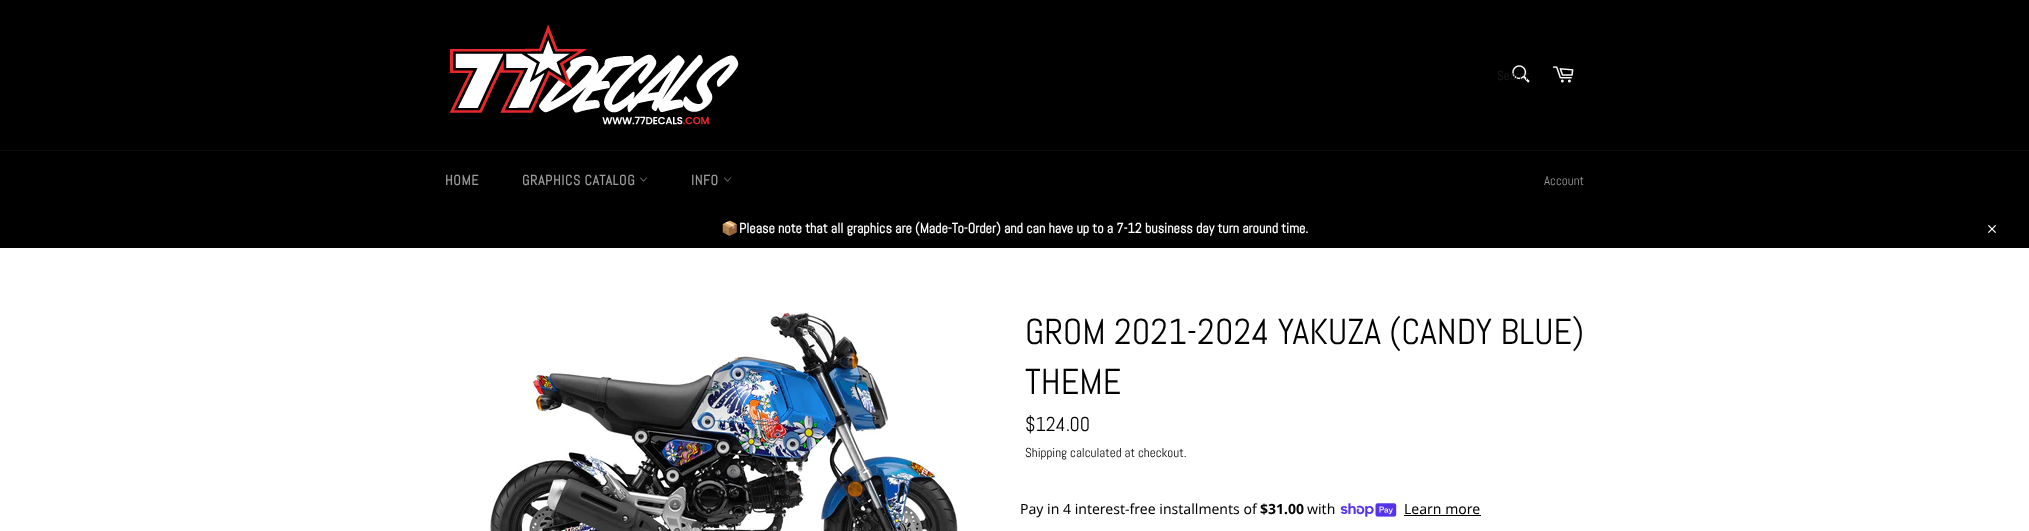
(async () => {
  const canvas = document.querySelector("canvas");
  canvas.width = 2029;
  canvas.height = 531;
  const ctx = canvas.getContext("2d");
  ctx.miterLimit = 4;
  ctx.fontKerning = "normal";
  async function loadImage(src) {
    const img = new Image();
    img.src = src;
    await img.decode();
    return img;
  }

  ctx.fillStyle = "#ffffff";
  ctx.fillRect(0, 0, 2029, 531);
  ctx.fillStyle = "#000000";
  ctx.fillRect(0, 0, 2029, 248);
  ctx.drawImage(await loadImage("img/1.png"), 449, 24, 290, 101);
  ctx.drawImage(await loadImage("img/2.png"), 1512, 65, 18, 18);
  ctx.drawImage(await loadImage("img/3.png"), 1552, 66, 22, 17);
  ctx.fillStyle = "#0d0d0d";
  ctx.fillRect(0, 150, 2029, 1);
  ctx.drawImage(await loadImage("img/4.png"), 640, 177, 7, 5);
  ctx.drawImage(await loadImage("img/4.png"), 724, 177, 7, 5);
  ctx.drawImage(await loadImage("img/5.png"), 1988, 225, 8, 8);
  ctx.drawImage(await loadImage("img/6.png"), 490, 312, 470, 219);
  ctx.drawImage(await loadImage("img/7.png"), 1340, 503, 57, 14);
  ctx.fillStyle = "#000000";
  ctx.fillRect(1404, 515, 77, 1);
  ctx.save();
  ctx.beginPath();
  ctx.rect(1497, 67, 32, 17);
  ctx.clip();
  ctx.font = "13px Abel";
  ctx.fillStyle = "#202020";
  ctx.fillText("Search", 1497, 80);
  ctx.restore();
  ctx.letterSpacing = "0.6px";
  ctx.font = "bold 14px Abel";
  ctx.fillStyle = "#999999";
  for (const [text, x, y] of [
    ["HOME", 445, 185],
    ["GRAPHICS CATALOG", 522, 185],
    ["INFO", 691, 185],
  ]) {
    ctx.fillText(text, x, y);
  }
  ctx.letterSpacing = "0px";
  ctx.font = "13px Abel";
  ctx.fillText("Account", 1544, 185);
  ctx.font = "bold 14px Noto Color Emoji";
  ctx.fillStyle = "#ffffff";
  ctx.fillText("📦", 721, 233);
  ctx.font = "bold 14px Abel";
  ctx.fillText("Please note that all graphics are (Made-To-Order) and can have up to a 7-12 business day turn around time.", 739, 233);
  ctx.font = "36px Abel";
  ctx.fillStyle = "#000000";
  ctx.fillText("GROM 2021-2024 YAKUZA (CANDY BLUE)", 1025, 344);
  ctx.fillText("THEME", 1025, 394);
  ctx.font = "20px Abel";
  ctx.fillText("$124.00", 1025, 431);
  ctx.font = "13px Abel";
  ctx.fillText("Shipping calculated at checkout.", 1025, 457);
  ctx.font = "14px Noto Sans";
  ctx.fillText("Pay in 4 interest-free installments of", 1020, 514);
  ctx.font = "bold 14px Noto Sans";
  ctx.fillText("$31.00", 1260, 514);
  ctx.font = "14px Noto Sans";
  ctx.fillText("with", 1307, 514);
  ctx.fillText("Learn more", 1404, 514);
})();
